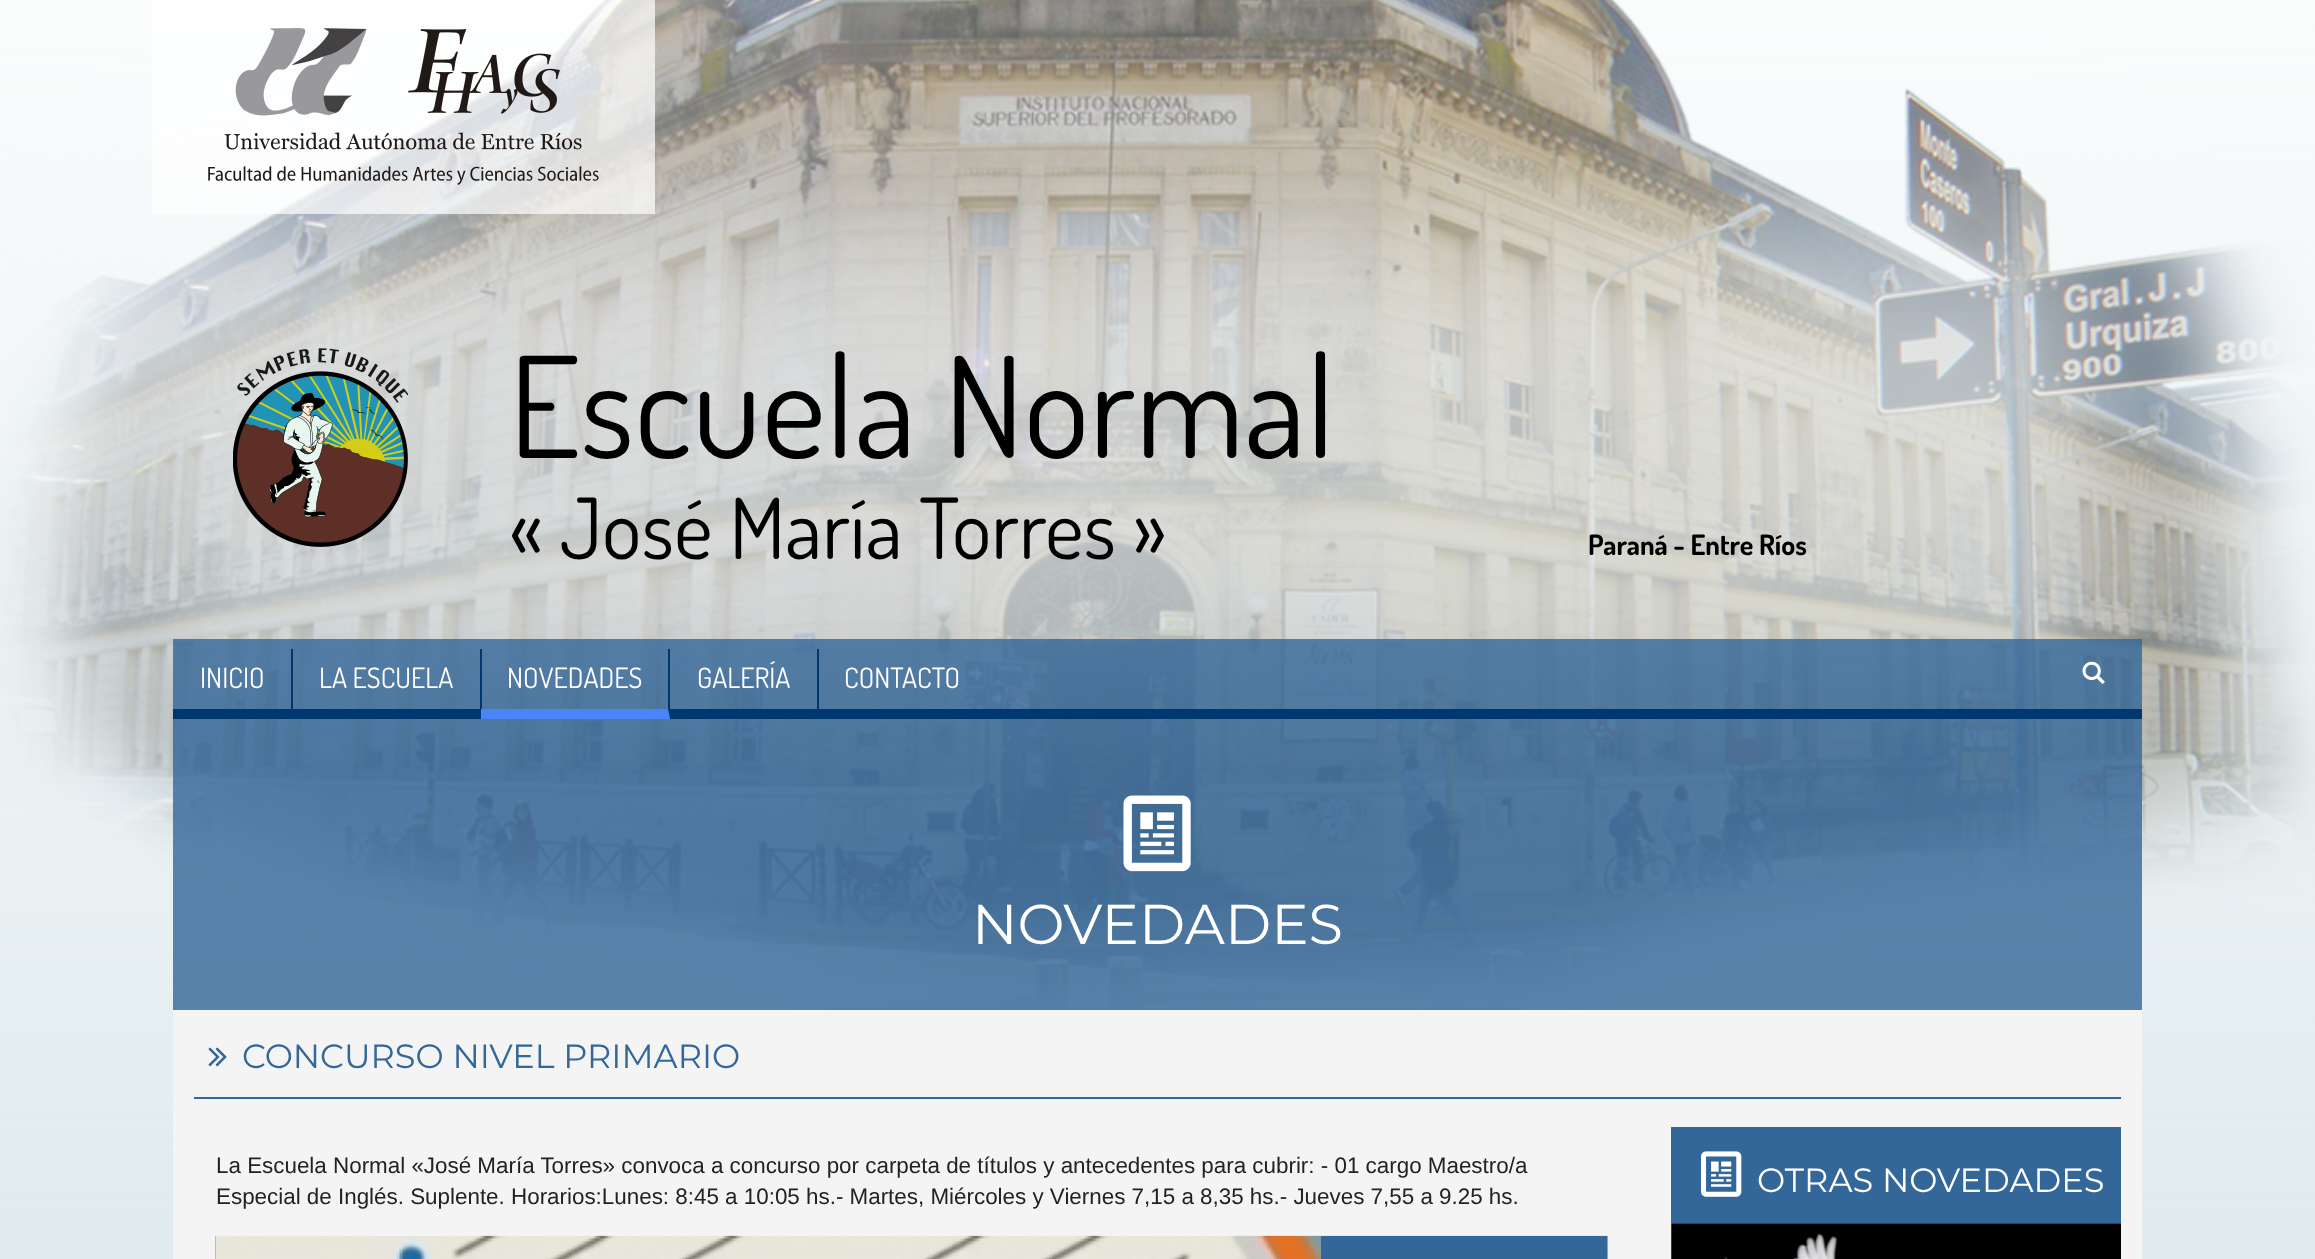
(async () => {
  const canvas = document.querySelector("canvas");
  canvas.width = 2315;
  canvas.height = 1259;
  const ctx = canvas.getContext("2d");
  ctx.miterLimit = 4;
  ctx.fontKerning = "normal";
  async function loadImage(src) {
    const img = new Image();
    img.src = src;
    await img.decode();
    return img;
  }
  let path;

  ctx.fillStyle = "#ffffff";
  ctx.fillRect(0, 0, 2315, 1259);
  ctx.drawImage(await loadImage("img/1.png"), 0, 0, 2315, 1259);
  ctx.fillStyle = "rgba(255, 255, 255, 0.7)";
  ctx.fillRect(152, 0, 503, 214);
  ctx.drawImage(await loadImage("img/2.png"), 208, 28, 391, 157);
  ctx.drawImage(await loadImage("img/3.png"), 233, 348, 175, 199);
  for (const [x, y, w, h, color] of [
    [173, 639, 1969, 70, "rgba(51, 102, 153, 0.8)"],
    [173, 709, 1969, 10, "#003770"],
    [291, 649, 2, 60, "#003770"],
    [480, 649, 2, 60, "#003770"],
  ]) {
    ctx.fillStyle = color;
    ctx.fillRect(x, y, w, h);
  }
  path = new Path2D("M670 649V719L668 709V649Z");
  ctx.fill(path);
  ctx.fillStyle = "#4b84fa";
  path = new Path2D("M670 719H481V709H668Z");
  ctx.fill(path);
  ctx.fillStyle = "#003770";
  ctx.fillRect(817, 649, 2, 60);
  ctx.drawImage(await loadImage("img/4.png"), 2082, 661, 23, 23);
  ctx.fillStyle = "rgba(51, 102, 153, 0.8)";
  ctx.fillRect(173, 719, 1969, 291);
  ctx.drawImage(await loadImage("img/5.png"), 1123, 795, 68, 77);
  ctx.fillStyle = "#f4f4f4";
  ctx.fillRect(173, 1010, 1969, 249);
  ctx.fillStyle = "#336699";
  ctx.fillRect(194, 1097, 1927, 2);
  ctx.drawImage(await loadImage("img/6.png"), 208, 1047, 19, 20);
  ctx.fillStyle = "#9e9e9e";
  ctx.fillRect(215, 1236, 1, 23);
  ctx.drawImage(await loadImage("img/7.png"), 215, 1235, 1393, 24);
  ctx.fillStyle = "#336699";
  ctx.fillRect(1321, 1236, 286, 23);
  ctx.fillRect(1671, 1127, 450, 96);
  ctx.drawImage(await loadImage("img/8.png"), 1701, 1151, 41, 46);
  ctx.drawImage(await loadImage("img/9.png"), 1671, 1223, 450, 36);
  ctx.font = "140px Dosis";
  ctx.fillStyle = "#000000";
  ctx.fillText("Escuela Normal", 509, 458);
  ctx.font = "84px Dosis";
  ctx.fillText("« José María Torres »", 509, 559);
  ctx.font = "bold 28px Dosis";
  ctx.fillText("Paraná - Entre Ríos", 1588, 555);
  ctx.font = "28px Dosis";
  ctx.fillStyle = "#ffffff";
  for (const [text, x, y] of [
    ["INICIO", 200, 688],
    ["LA ESCUELA", 319, 688],
    ["NOVEDADES", 507, 688],
    ["GALERÍA", 697, 688],
    ["CONTACTO", 844, 688],
  ]) {
    ctx.fillText(text, x, y);
  }
  ctx.font = "100 56px Montserrat";
  ctx.fillText("NOVEDADES", 972, 944);
  ctx.font = "100 33.6px Montserrat";
  ctx.fillStyle = "#336699";
  ctx.fillText("CONCURSO NIVEL PRIMARIO", 242, 1068);
  ctx.font = "22.4px Liberation Sans";
  ctx.fillStyle = "#222222";
  ctx.fillText("La Escuela Normal «José María Torres» convoca a concurso por carpeta de títulos y antecedentes para cubrir: - 01 cargo Maestro/a", 216, 1173);
  ctx.fillText("Especial de Inglés. Suplente. Horarios:Lunes: 8:45 a 10:05 hs.- Martes, Miércoles y Viernes 7,15 a 8,35 hs.- Jueves 7,55 a 9.25 hs.", 216, 1204);
  ctx.font = "100 33.6px Montserrat";
  ctx.fillStyle = "#ffffff";
  ctx.fillText("OTRAS NOVEDADES", 1757, 1192);
})();
